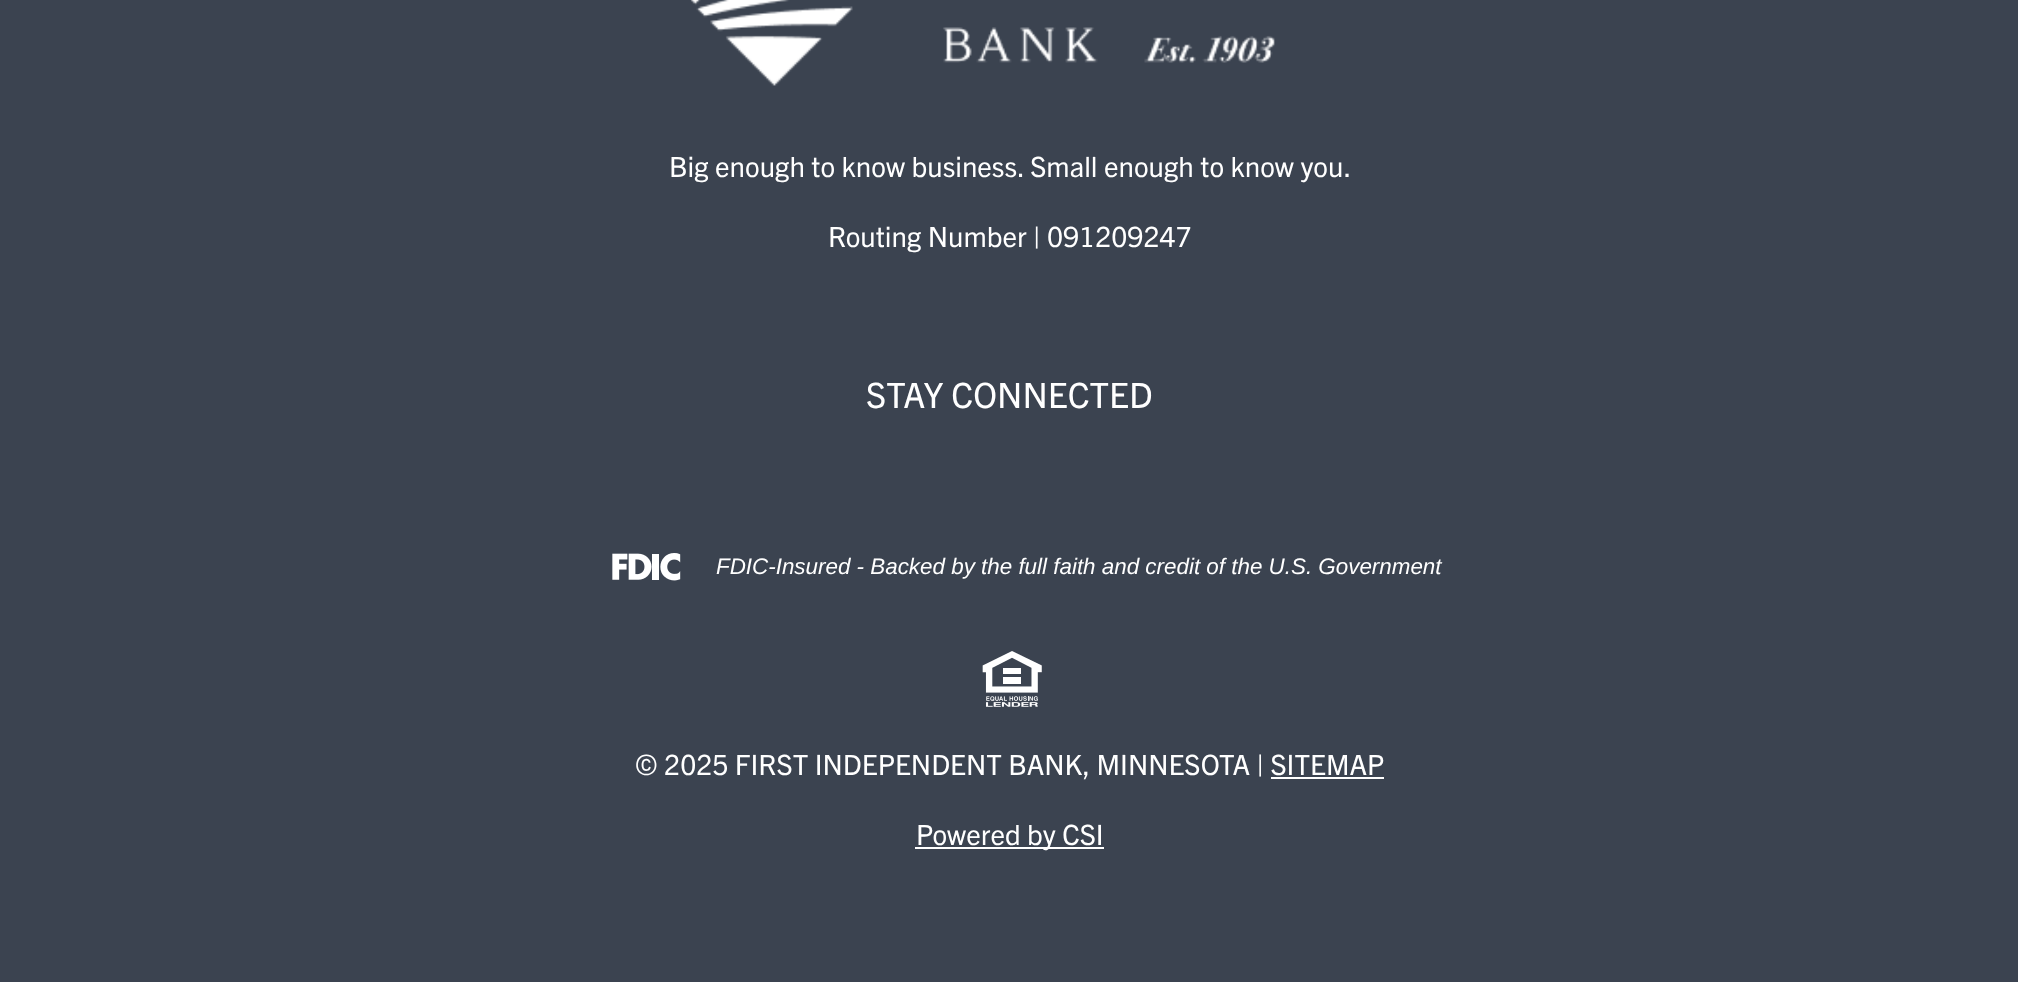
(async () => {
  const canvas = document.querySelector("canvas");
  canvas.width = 2018;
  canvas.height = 982;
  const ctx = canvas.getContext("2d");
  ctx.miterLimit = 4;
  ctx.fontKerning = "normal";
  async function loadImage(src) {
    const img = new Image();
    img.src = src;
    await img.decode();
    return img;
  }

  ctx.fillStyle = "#3b4350";
  ctx.fillRect(0, 0, 2018, 982);
  ctx.drawImage(await loadImage("img/1.png"), 690, 0, 585, 86);
  ctx.drawImage(await loadImage("img/2.png"), 612, 553, 69, 28);
  ctx.drawImage(await loadImage("img/3.png"), 982, 651, 60, 56);
  ctx.fillStyle = "#ffffff";
  ctx.fillRect(1271, 777, 113, 2);
  ctx.fillRect(915, 847, 189, 2);
  ctx.font = "28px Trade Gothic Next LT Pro";
  ctx.fillText("Big enough to know business. Small enough to know you.", 669, 177);
  ctx.fillText("Routing Number | 091209247", 828, 247);
  ctx.font = "35px Trade Gothic Next LT Pro";
  ctx.fillText("STAY CONNECTED", 866, 408);
  ctx.font = "italic 22.4px Liberation Sans";
  ctx.fillText("FDIC-Insured - Backed by the full faith and credit of the U.S. Government", 716, 574);
  ctx.font = "28px Trade Gothic Next LT Pro";
  ctx.fillText("© 2025 FIRST INDEPENDENT BANK, MINNESOTA | SITEMAP", 635, 775);
  ctx.fillText("Powered by CSI", 916, 845);
})();
